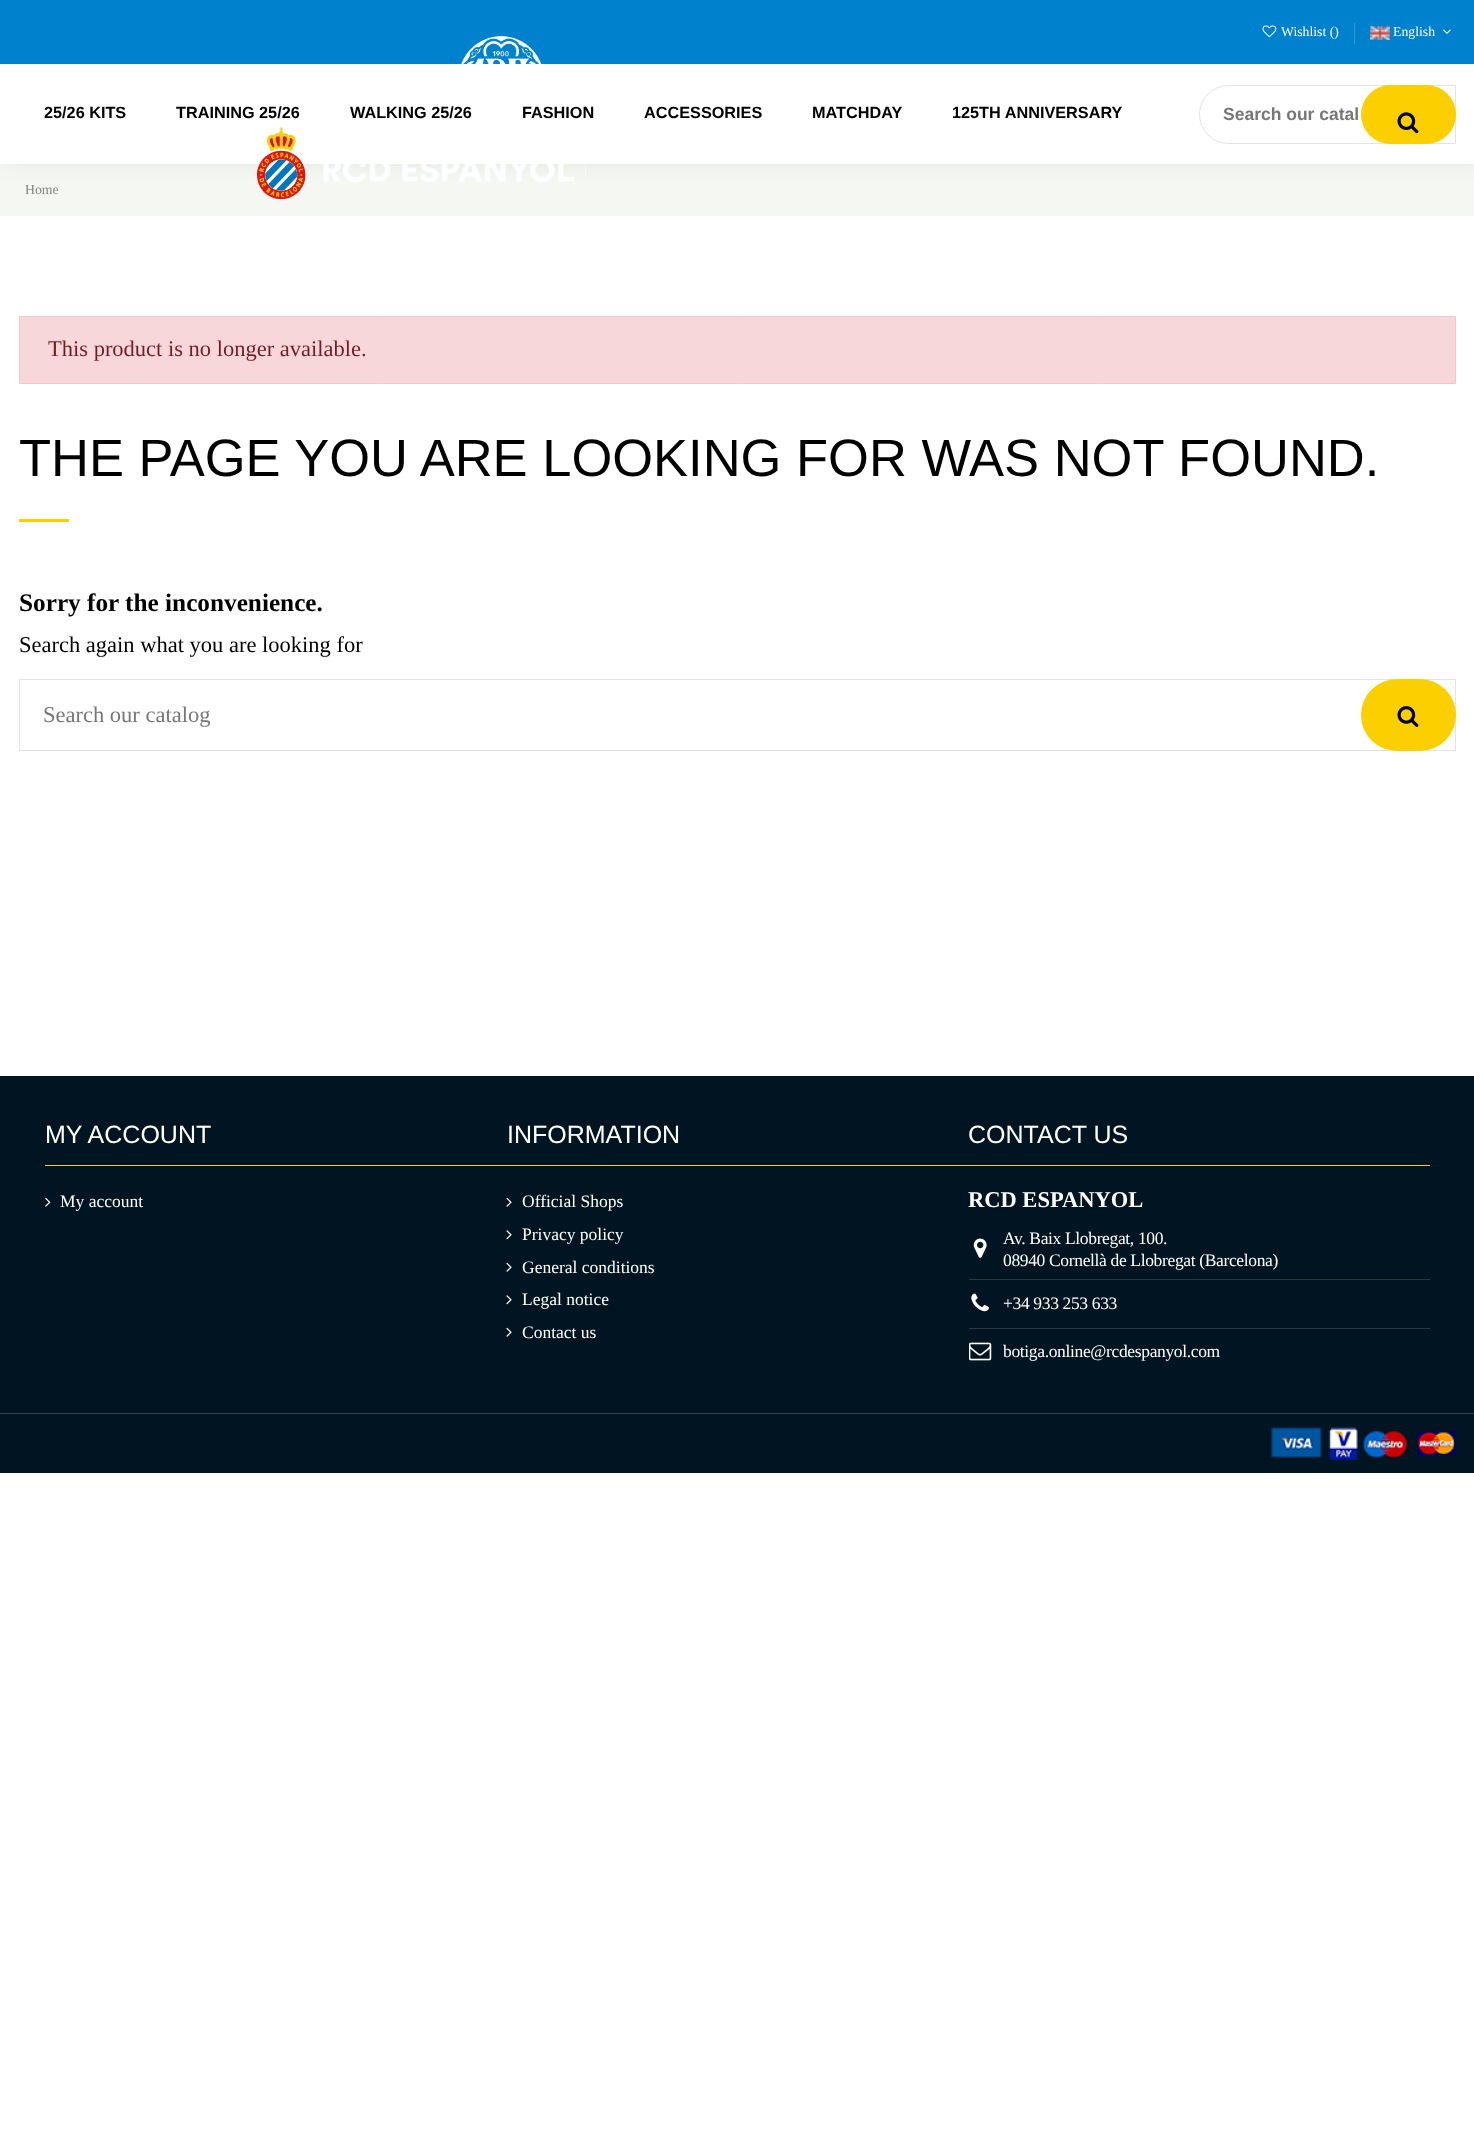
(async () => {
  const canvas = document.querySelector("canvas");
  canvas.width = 1474;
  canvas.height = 2131;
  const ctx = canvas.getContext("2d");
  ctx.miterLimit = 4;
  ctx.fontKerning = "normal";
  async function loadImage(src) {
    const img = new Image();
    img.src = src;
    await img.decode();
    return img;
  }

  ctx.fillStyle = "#ffffff";
  ctx.fillRect(0, 0, 1474, 2131);
  ctx.fillStyle = "#f4f7f2";
  ctx.fillRect(0, 164, 1474, 52);
  ctx.fillStyle = "rgba(61, 57, 57, 0.09)";
  ctx.filter = "blur(9.5px)";
  ctx.beginPath();
  ctx.rect(6, 0, 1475, 164);
  ctx.fill();
  ctx.filter = "none";
  ctx.fillStyle = "#ffffff";
  ctx.fillRect(0, 64, 1474, 100);
  ctx.fillStyle = "#0081cd";
  ctx.fillRect(0, 0, 1474, 64);
  ctx.drawImage(await loadImage("img/1.png"), 1262, 25, 15, 13);
  ctx.fillStyle = "#339ad7";
  ctx.fillRect(1354, 23, 1, 21);
  ctx.drawImage(await loadImage("img/2.png"), 1370, 26, 20, 14);
  ctx.drawImage(await loadImage("img/3.png"), 1443, 29, 8, 5);
  ctx.drawImage(await loadImage("img/4.png"), 461, 35, 81, 29);
  ctx.drawImage(await loadImage("img/5.png"), 256, 127, 51, 74);
  ctx.drawImage(await loadImage("img/6.png"), 323, 164, 251, 19);
  ctx.fillStyle = "rgba(255, 255, 255, 0.5)";
  ctx.fillRect(585, 164, 1, 14);
  ctx.beginPath();
  ctx.roundRect(1199.5, 85.5, 256, 58, [29, 0, 0, 29]);
  ctx.strokeStyle = "#e3e3e3";
  ctx.stroke();
  ctx.fillStyle = "#fccf00";
  ctx.beginPath();
  ctx.roundRect(1361, 85, 95, 59, 29.5);
  ctx.fill();
  ctx.drawImage(await loadImage("img/7.png"), 1397, 112, 22, 22);
  ctx.fillStyle = "#f8d7da";
  ctx.beginPath();
  ctx.rect(19.5, 316.5, 1436, 67);
  ctx.fill();
  ctx.strokeStyle = "#f5c6cb";
  ctx.stroke();
  ctx.fillStyle = "#fccf00";
  ctx.fillRect(19, 519, 50, 3);
  ctx.strokeStyle = "#e3e3e3";
  ctx.strokeRect(19.5, 679.5, 1436, 71);
  ctx.beginPath();
  ctx.roundRect(1361, 679, 95, 72, 36);
  ctx.fill();
  ctx.drawImage(await loadImage("img/8.png"), 1397, 706, 22, 21);
  ctx.fillStyle = "#001521";
  ctx.fillRect(0, 1076, 1474, 397);
  ctx.fillStyle = "#fccf00";
  ctx.fillRect(45, 1165, 1385, 1);
  ctx.drawImage(await loadImage("img/9.png"), 45, 1197, 6, 10);
  ctx.drawImage(await loadImage("img/10.png"), 506, 1197, 6, 10);
  ctx.drawImage(await loadImage("img/11.png"), 506, 1230, 6, 10);
  ctx.drawImage(await loadImage("img/10.png"), 506, 1262, 6, 10);
  ctx.drawImage(await loadImage("img/11.png"), 506, 1295, 6, 10);
  ctx.drawImage(await loadImage("img/10.png"), 506, 1327, 6, 10);
  ctx.drawImage(await loadImage("img/12.png"), 973, 1238, 14, 20);
  ctx.fillStyle = "#283841";
  ctx.fillRect(969, 1279, 461, 1);
  ctx.drawImage(await loadImage("img/13.png"), 971, 1293, 18, 19);
  ctx.fillRect(969, 1328, 461, 1);
  ctx.drawImage(await loadImage("img/14.png"), 969, 1342, 23, 19);
  ctx.fillStyle = "#33444d";
  ctx.fillRect(0, 1413, 1474, 1);
  ctx.drawImage(await loadImage("img/15.png"), 1271, 1427, 186, 33);
  ctx.font = "13.75px Liberation Serif";
  ctx.fillStyle = "#ffffff";
  ctx.fillText("Wishlist ()", 1281, 36);
  ctx.fillText("English", 1393, 36);
  ctx.font = "bold 16.25px Liberation Sans";
  ctx.fillStyle = "#000000";
  for (const [text, x, y] of [
    ["25/26 KITS", 44, 118],
    ["TRAINING 25/26", 176, 118],
    ["WALKING 25/26", 350, 118],
    ["FASHION", 522, 118],
    ["ACCESSORIES", 644, 118],
    ["MATCHDAY", 812, 118],
    ["125TH ANNIVERSARY", 952, 118],
  ]) {
    ctx.fillText(text, x, y);
  }
  ctx.font = "bold 17.5px Liberation Sans";
  ctx.fillStyle = "#777777";
  ctx.fillText("Search our catal", 1223, 120);
  ctx.font = "13.75px Liberation Serif";
  ctx.fillStyle = "#858585";
  ctx.fillText("Home", 25, 194);
  ctx.font = "22.5px Liberation Serif";
  ctx.fillStyle = "#721c24";
  ctx.fillText("This product is no longer available.", 48, 356);
  ctx.font = "52.5px Liberation Sans";
  ctx.fillStyle = "#000000";
  ctx.fillText("THE PAGE YOU ARE LOOKING FOR WAS NOT FOUND.", 19, 476);
  ctx.font = "bold 25.25px Liberation Serif";
  ctx.fillText("Sorry for the inconvenience.", 19, 611);
  ctx.font = "22.5px Liberation Serif";
  ctx.fillText("Search again what you are looking for", 19, 652);
  ctx.fillStyle = "#777777";
  ctx.fillText("Search our catalog", 43, 722);
  ctx.font = "25px Liberation Sans";
  ctx.fillStyle = "#ffffff";
  ctx.fillText("MY ACCOUNT", 45, 1143);
  ctx.font = "17.5px Liberation Serif";
  ctx.fillText("My account", 60, 1207);
  ctx.font = "25px Liberation Sans";
  ctx.fillText("INFORMATION", 507, 1143);
  ctx.font = "17.5px Liberation Serif";
  for (const [text, x, y] of [
    ["Official Shops", 522, 1207],
    ["Privacy policy", 522, 1240],
    ["General conditions", 522, 1273],
    ["Legal notice", 522, 1305],
    ["Contact us", 522, 1338],
  ]) {
    ctx.fillText(text, x, y);
  }
  ctx.font = "25px Liberation Sans";
  ctx.fillText("CONTACT US", 968, 1143);
  ctx.font = "bold 22.5px Liberation Serif";
  ctx.fillText("RCD ESPANYOL", 968, 1207);
  ctx.letterSpacing = "-0.35px";
  ctx.font = "17.5px Liberation Serif";
  for (const [text, x, y] of [
    ["Av. Baix Llobregat, 100.", 1003, 1244],
    ["08940 Cornellà de Llobregat (Barcelona)", 1003, 1266],
    ["+34 933 253 633", 1003, 1309],
    ["botiga.online@rcdespanyol.com", 1003, 1357],
  ]) {
    ctx.fillText(text, x, y);
  }
})();
